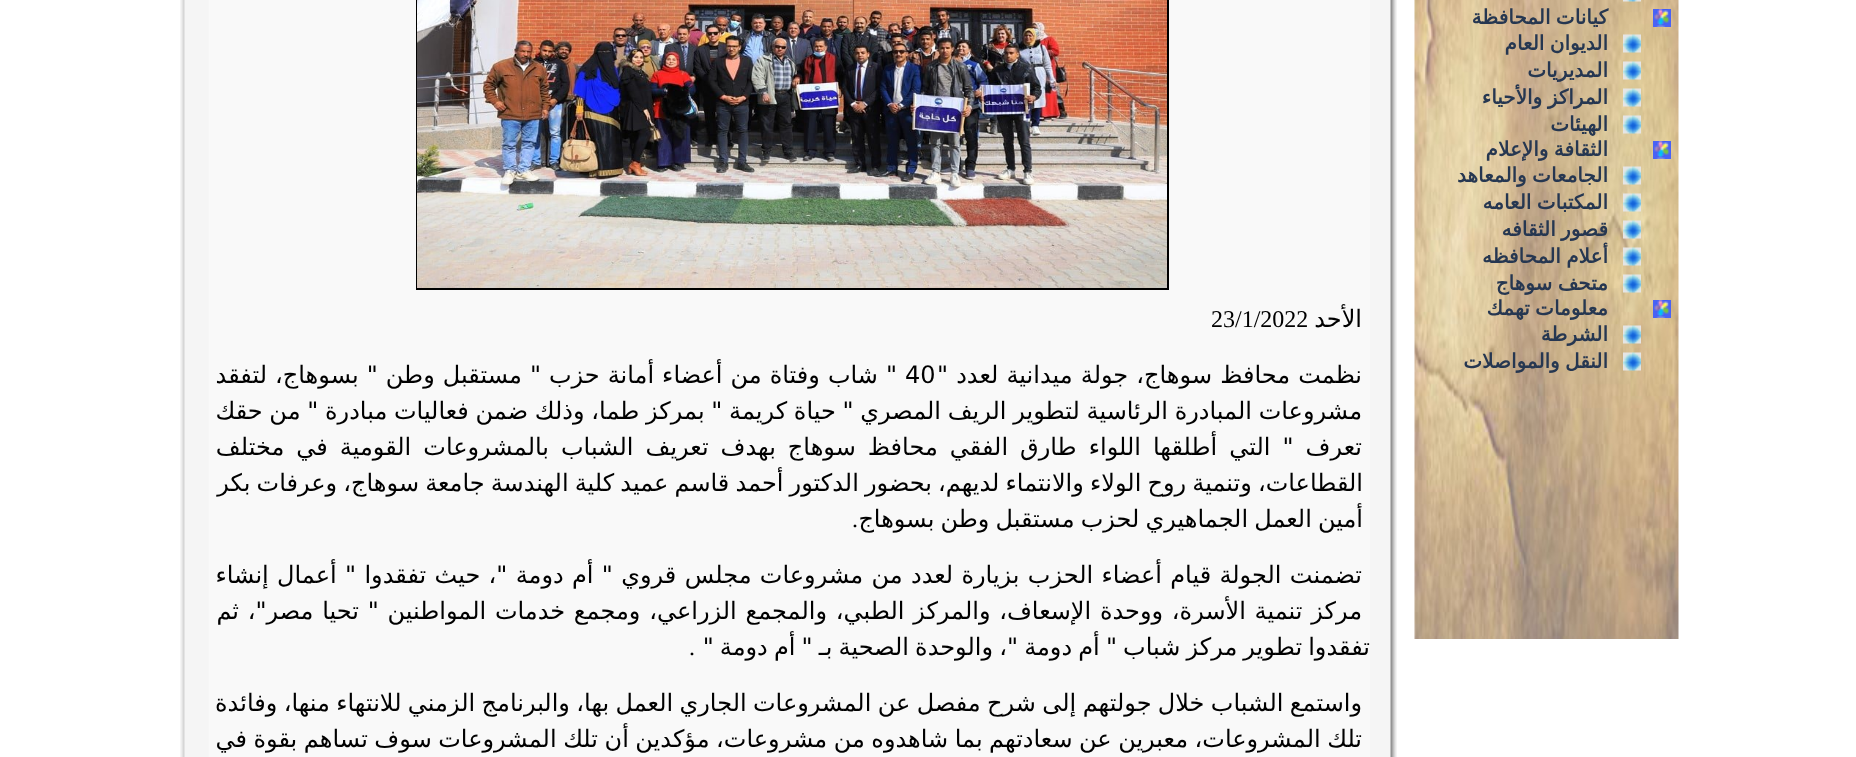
(async () => {
  const canvas = document.querySelector("canvas");
  canvas.width = 1856;
  canvas.height = 757;
  const ctx = canvas.getContext("2d");
  ctx.miterLimit = 4;
  ctx.fontKerning = "normal";
  async function loadImage(src) {
    const img = new Image();
    img.src = src;
    await img.decode();
    return img;
  }

  ctx.fillStyle = "#ffffff";
  ctx.fillRect(0, 0, 1856, 757);
  ctx.drawImage(await loadImage("img/1.png"), 1414, 0, 265, 639);
  ctx.drawImage(await loadImage("img/2.png"), 1623, 0, 18, 2);
  ctx.drawImage(await loadImage("img/3.png"), 1653, 9, 18, 18);
  ctx.drawImage(await loadImage("img/4.png"), 1623, 34, 18, 19);
  ctx.drawImage(await loadImage("img/5.png"), 1623, 61, 18, 19);
  ctx.drawImage(await loadImage("img/6.png"), 1623, 88, 18, 19);
  ctx.drawImage(await loadImage("img/7.png"), 1623, 115, 18, 19);
  ctx.drawImage(await loadImage("img/3.png"), 1653, 141, 18, 18);
  ctx.drawImage(await loadImage("img/8.png"), 1623, 166, 18, 19);
  ctx.drawImage(await loadImage("img/9.png"), 1623, 193, 18, 19);
  ctx.drawImage(await loadImage("img/10.png"), 1623, 220, 18, 19);
  ctx.drawImage(await loadImage("img/11.png"), 1623, 247, 18, 19);
  ctx.drawImage(await loadImage("img/12.png"), 1623, 274, 18, 19);
  ctx.drawImage(await loadImage("img/3.png"), 1653, 300, 18, 18);
  ctx.drawImage(await loadImage("img/13.png"), 1623, 325, 18, 19);
  ctx.drawImage(await loadImage("img/14.png"), 1623, 352, 18, 19);
  ctx.drawImage(await loadImage("img/15.png"), 1370, 0, 27, 757);
  ctx.fillStyle = "#f6f6f6";
  ctx.fillRect(208, 0, 1, 757);
  ctx.fillStyle = "#f9f9f9";
  ctx.fillRect(209, 0, 1161, 757);
  ctx.strokeStyle = "#000000";
  ctx.lineWidth = 2;
  ctx.strokeRect(417, -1, 751, 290);
  ctx.drawImage(await loadImage("img/16.png"), 417, 0, 750, 288);
  ctx.drawImage(await loadImage("img/17.png"), 180, 0, 28, 757);
  ctx.wordSpacing = "-1px";
  ctx.direction = "rtl";
  ctx.font = "bold 20px DejaVu Sans";
  ctx.fillStyle = "#263751";
  ctx.fillText("كيانات المحافظة", 1608, 24);
  ctx.fillText("الديوان العام", 1608, 50);
  ctx.wordSpacing = "0px";
  ctx.fillText("المديريات", 1608, 77);
  ctx.wordSpacing = "-1px";
  ctx.fillText("المراكز والأحياء", 1608, 104);
  ctx.wordSpacing = "0px";
  ctx.fillText("الهيئات", 1608, 131);
  ctx.wordSpacing = "-1px";
  for (const [text, x, y] of [
    ["الثقافة والإعلام", 1608, 156],
    ["الجامعات والمعاهد", 1608, 182],
    ["المكتبات العامه", 1608, 209],
    ["قصور الثقافه", 1608, 236],
    ["أعلام المحافظه", 1608, 263],
    ["متحف سوهاج", 1608, 290],
    ["معلومات تهمك", 1608, 315],
  ]) {
    ctx.fillText(text, x, y);
  }
  ctx.wordSpacing = "0px";
  ctx.fillText("الشرطة", 1608, 341);
  ctx.wordSpacing = "-1px";
  ctx.fillText("النقل والمواصلات", 1608, 368);
  ctx.wordSpacing = "0px";
  ctx.font = "24px DejaVu Sans";
  ctx.fillStyle = "#000000";
  ctx.fillText("الأحد", 1362, 327);
  ctx.direction = "ltr";
  ctx.font = "24px Liberation Serif";
  ctx.fillText("23/1/2022", 1211, 327);
  ctx.wordSpacing = "0.5px";
  ctx.direction = "rtl";
  ctx.font = "24px DejaVu Sans";
  ctx.fillText("نظمت محافظ سوهاج، جولة ميدانية لعدد \"", 1362, 383);
  ctx.wordSpacing = "0px";
  ctx.direction = "ltr";
  ctx.fillText("40", 905, 383);
  ctx.wordSpacing = "0.4px";
  ctx.direction = "rtl";
  ctx.fillText("\" شاب وفتاة من أعضاء أمانة حزب \" مستقبل وطن \" بسوهاج، لتفقد", 897, 383);
  ctx.wordSpacing = "-0.9px";
  ctx.fillText("مشروعات المبادرة الرئاسية لتطوير الريف المصري \" حياة كريمة \" بمركز طما، وذلك ضمن فعاليات مبادرة \" من حقك", 1362, 419);
  ctx.wordSpacing = "4.4px";
  ctx.fillText("تعرف \" التي أطلقها اللواء طارق الفقي محافظ سوهاج بهدف تعريف الشباب بالمشروعات القومية في مختلف", 1362, 455);
  ctx.wordSpacing = "-1.5px";
  ctx.fillText("القطاعات، وتنمية روح الولاء والانتماء لديهم، بحضور الدكتور أحمد قاسم عميد كلية الهندسة جامعة سوهاج، وعرفات بكر", 1363, 491);
  ctx.fillText("أمين العمل الجماهيري لحزب مستقبل وطن بسوهاج", 1363, 527);
  ctx.wordSpacing = "0px";
  ctx.direction = "ltr";
  ctx.font = "24px Liberation Serif";
  ctx.fillText(".", 852, 527);
  ctx.wordSpacing = "0.7px";
  ctx.direction = "rtl";
  ctx.font = "24px DejaVu Sans";
  ctx.fillText("تضمنت الجولة قيام أعضاء الحزب بزيارة لعدد من مشروعات مجلس قروي \" أم دومة \"، حيث تفقدوا \" أعمال إنشاء", 1362, 583);
  ctx.wordSpacing = "1.1px";
  ctx.fillText("مركز تنمية الأسرة، ووحدة الإسعاف، والمركز الطبي، والمجمع الزراعي، ومجمع خدمات المواطنين \" تحيا مصر\"، ثم", 1362, 619);
  ctx.wordSpacing = "-1.5px";
  ctx.fillText("تفقدوا تطوير مركز شباب \" أم دومة \"، والوحدة الصحية بـ \" أم دومة \"", 1370, 655);
  ctx.wordSpacing = "0px";
  ctx.direction = "ltr";
  ctx.font = "24px Liberation Serif";
  ctx.fillText(".", 689, 655);
  ctx.wordSpacing = "-1.25px";
  ctx.direction = "rtl";
  ctx.font = "24px DejaVu Sans";
  ctx.fillText("واستمع الشباب خلال جولتهم إلى شرح مفصل عن المشروعات الجاري العمل بها، والبرنامج الزمني للانتهاء منها، وفائدة", 1362, 711);
  ctx.wordSpacing = "-1.1px";
  ctx.fillText("تلك المشروعات، معبرين عن سعادتهم بما شاهدوه من مشروعات، مؤكدين أن تلك المشروعات سوف تساهم بقوة في", 1362, 747);
})();
